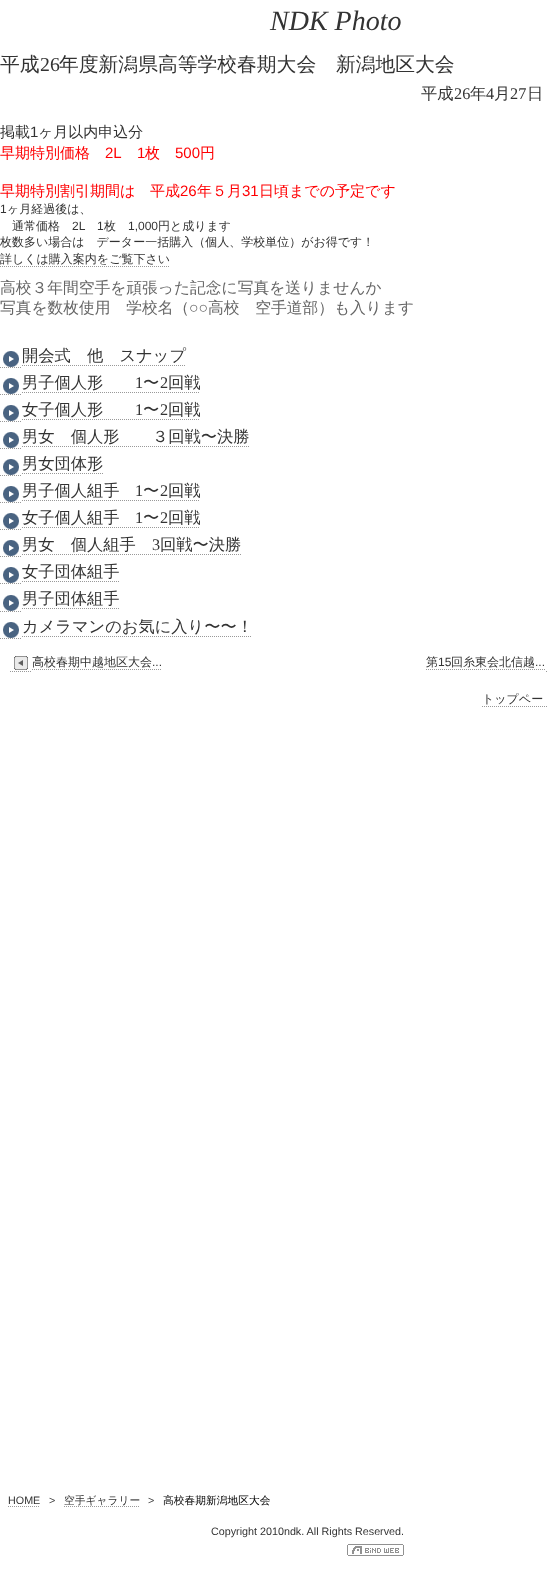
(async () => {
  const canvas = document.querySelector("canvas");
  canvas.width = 547;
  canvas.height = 1574;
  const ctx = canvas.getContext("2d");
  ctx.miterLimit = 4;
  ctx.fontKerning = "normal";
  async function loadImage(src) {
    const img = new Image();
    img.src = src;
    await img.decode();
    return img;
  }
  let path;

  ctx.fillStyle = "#ffffff";
  ctx.fillRect(0, 0, 547, 1574);
  path = new Path2D("M0 266.5H170");
  ctx.strokeStyle = "#999999";
  ctx.setLineDash([1, 1]);
  ctx.stroke(path);
  ctx.drawImage(await loadImage("img/1.png"), 3, 351, 16, 16);
  path = new Path2D("M0 367.5H22");
  ctx.stroke(path);
  path = new Path2D("M22 365.5H185");
  ctx.stroke(path);
  ctx.drawImage(await loadImage("img/1.png"), 3, 378, 16, 16);
  path = new Path2D("M0 394.5H22");
  ctx.stroke(path);
  path = new Path2D("M22 392.5H200");
  ctx.stroke(path);
  ctx.drawImage(await loadImage("img/1.png"), 3, 405, 16, 16);
  path = new Path2D("M0 421.5H22");
  ctx.stroke(path);
  path = new Path2D("M22 419.5H200");
  ctx.stroke(path);
  ctx.drawImage(await loadImage("img/1.png"), 3, 432, 16, 16);
  path = new Path2D("M0 448.5H22");
  ctx.stroke(path);
  path = new Path2D("M22 446.5H249");
  ctx.stroke(path);
  ctx.drawImage(await loadImage("img/1.png"), 3, 459, 16, 16);
  path = new Path2D("M0 475.5H22");
  ctx.stroke(path);
  path = new Path2D("M22 473.5H103");
  ctx.stroke(path);
  ctx.drawImage(await loadImage("img/1.png"), 3, 486, 16, 16);
  path = new Path2D("M0 502.5H22");
  ctx.stroke(path);
  path = new Path2D("M22 500.5H200");
  ctx.stroke(path);
  ctx.drawImage(await loadImage("img/1.png"), 3, 513, 16, 16);
  path = new Path2D("M0 529.5H22");
  ctx.stroke(path);
  path = new Path2D("M22 527.5H200");
  ctx.stroke(path);
  ctx.drawImage(await loadImage("img/1.png"), 3, 540, 16, 16);
  path = new Path2D("M0 556.5H22");
  ctx.stroke(path);
  path = new Path2D("M22 554.5H241");
  ctx.stroke(path);
  ctx.drawImage(await loadImage("img/1.png"), 3, 567, 16, 16);
  path = new Path2D("M0 583.5H22");
  ctx.stroke(path);
  path = new Path2D("M22 581.5H119");
  ctx.stroke(path);
  ctx.drawImage(await loadImage("img/1.png"), 3, 595, 16, 16);
  path = new Path2D("M0 611.5H22");
  ctx.stroke(path);
  path = new Path2D("M22 608.5H119");
  ctx.stroke(path);
  ctx.drawImage(await loadImage("img/1.png"), 3, 622, 16, 16);
  path = new Path2D("M0 638.5H22");
  ctx.stroke(path);
  path = new Path2D("M22 636.5H252");
  ctx.stroke(path);
  ctx.drawImage(await loadImage("img/2.png"), 14, 656, 14, 14);
  path = new Path2D("M10 671.5H32");
  ctx.stroke(path);
  path = new Path2D("M32 669.5H162");
  ctx.stroke(path);
  path = new Path2D("M426 669.5H546");
  ctx.stroke(path);
  path = new Path2D("M546 671.5H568");
  ctx.stroke(path);
  path = new Path2D("M482 706.5H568");
  ctx.stroke(path);
  path = new Path2D("M8 1506.5H40");
  ctx.stroke(path);
  path = new Path2D("M64 1506.5H140");
  ctx.stroke(path);
  ctx.drawImage(await loadImage("img/3.png"), 347, 1544, 57, 12);
  ctx.font = "italic 28px Liberation Serif";
  ctx.fillStyle = "#333333";
  ctx.fillText("NDK Photo", 270, 30);
  ctx.font = "500 19.8px WenQuanYi Zen Hei";
  ctx.fillText("平成", 0, 71);
  ctx.font = "19.8px Liberation Serif";
  ctx.fillText("26", 40, 71);
  ctx.font = "500 19.8px WenQuanYi Zen Hei";
  ctx.fillText("年度新潟県高等学校春期大会　新潟地区大会", 59, 71);
  ctx.font = "500 16.25px WenQuanYi Zen Hei";
  ctx.fillText("平成", 421, 99);
  ctx.font = "16.25px Liberation Serif";
  ctx.fillText("26", 454, 99);
  ctx.font = "500 16.25px WenQuanYi Zen Hei";
  ctx.fillText("年", 470, 99);
  ctx.font = "16.25px Liberation Serif";
  ctx.fillText("4", 486, 99);
  ctx.font = "500 16.25px WenQuanYi Zen Hei";
  ctx.fillText("月", 494, 99);
  ctx.font = "16.25px Liberation Serif";
  ctx.fillText("27", 510, 99);
  ctx.font = "500 16.25px WenQuanYi Zen Hei";
  ctx.fillText("日", 527, 99);
  ctx.font = "500 15px WenQuanYi Zen Hei";
  ctx.fillText("掲載", 0, 137);
  ctx.font = "15px Liberation Sans";
  ctx.fillText("1", 30, 137);
  ctx.font = "500 15px WenQuanYi Zen Hei";
  ctx.fillText("ヶ月以内申込分", 38, 137);
  ctx.fillStyle = "#ff0003";
  ctx.fillText("早期特別価格", 0, 158);
  ctx.font = "15px Liberation Sans";
  ctx.fillText("2L", 105, 158);
  ctx.fillText("1", 137, 158);
  ctx.font = "500 15px WenQuanYi Zen Hei";
  ctx.fillText("枚", 145, 158);
  ctx.font = "15px Liberation Sans";
  ctx.fillText("500", 175, 158);
  ctx.font = "500 15px WenQuanYi Zen Hei";
  for (const [text, x, y] of [
    ["円", 200, 158],
    ["早期特別割引期間は", 0, 196],
    ["平成", 150, 196],
  ]) {
    ctx.fillText(text, x, y);
  }
  ctx.font = "15px Liberation Sans";
  ctx.fillText("26", 180, 196);
  ctx.font = "500 15px WenQuanYi Zen Hei";
  ctx.fillText("年５月", 197, 196);
  ctx.font = "15px Liberation Sans";
  ctx.fillText("31", 242, 196);
  ctx.font = "500 15px WenQuanYi Zen Hei";
  ctx.fillText("日頃までの予定です", 259, 196);
  ctx.font = "12px Liberation Sans";
  ctx.fillStyle = "#333333";
  ctx.fillText("1", 0, 213);
  ctx.font = "500 12px WenQuanYi Zen Hei";
  ctx.fillText("ヶ月経過後は、", 7, 213);
  ctx.fillText("通常価格", 12, 230);
  ctx.font = "12px Liberation Sans";
  ctx.fillText("2L", 72, 230);
  ctx.fillText("1", 97, 230);
  ctx.font = "500 12px WenQuanYi Zen Hei";
  ctx.fillText("枚", 104, 230);
  ctx.font = "12px Liberation Sans";
  ctx.fillText("1,000", 128, 230);
  ctx.font = "500 12px WenQuanYi Zen Hei";
  for (const [text, x, y] of [
    ["円と成ります", 158, 230],
    ["枚数多い場合は　データー一括購入（個人、学校単位）がお得です！", 0, 246],
    ["詳しくは購入案内をご覧下さい", 0, 263],
  ]) {
    ctx.fillText(text, x, y);
  }
  ctx.font = "500 15.75px WenQuanYi Zen Hei";
  ctx.fillStyle = "#666666";
  ctx.fillText("高校３年間空手を頑張った記念に写真を送りませんか", 0, 293);
  ctx.fillText("写真を数枚使用　学校名（", 0, 313);
  ctx.font = "15.75px Liberation Serif";
  ctx.fillText("○○", 189, 313);
  ctx.font = "500 15.75px WenQuanYi Zen Hei";
  ctx.fillText("高校　空手道部）も入ります", 208, 313);
  ctx.font = "500 16.25px WenQuanYi Zen Hei";
  ctx.fillStyle = "#333333";
  ctx.fillText("開会式　他　スナップ", 22, 361);
  ctx.fillText("男子個人形", 22, 388);
  ctx.font = "16.25px Liberation Serif";
  ctx.fillText("1", 135, 388);
  ctx.font = "500 16.25px WenQuanYi Zen Hei";
  ctx.fillText("〜", 143, 388);
  ctx.font = "16.25px Liberation Serif";
  ctx.fillText("2", 160, 388);
  ctx.font = "500 16.25px WenQuanYi Zen Hei";
  ctx.fillText("回戦", 168, 388);
  ctx.fillText("女子個人形", 22, 415);
  ctx.font = "16.25px Liberation Serif";
  ctx.fillText("1", 135, 415);
  ctx.font = "500 16.25px WenQuanYi Zen Hei";
  ctx.fillText("〜", 143, 415);
  ctx.font = "16.25px Liberation Serif";
  ctx.fillText("2", 160, 415);
  ctx.font = "500 16.25px WenQuanYi Zen Hei";
  for (const [text, x, y] of [
    ["回戦", 168, 415],
    ["男女　個人形　　３回戦〜決勝", 22, 442],
    ["男女団体形", 22, 469],
    ["男子個人組手", 22, 496],
  ]) {
    ctx.fillText(text, x, y);
  }
  ctx.font = "16.25px Liberation Serif";
  ctx.fillText("1", 135, 496);
  ctx.font = "500 16.25px WenQuanYi Zen Hei";
  ctx.fillText("〜", 143, 496);
  ctx.font = "16.25px Liberation Serif";
  ctx.fillText("2", 160, 496);
  ctx.font = "500 16.25px WenQuanYi Zen Hei";
  ctx.fillText("回戦", 168, 496);
  ctx.fillText("女子個人組手", 22, 523);
  ctx.font = "16.25px Liberation Serif";
  ctx.fillText("1", 135, 523);
  ctx.font = "500 16.25px WenQuanYi Zen Hei";
  ctx.fillText("〜", 143, 523);
  ctx.font = "16.25px Liberation Serif";
  ctx.fillText("2", 160, 523);
  ctx.font = "500 16.25px WenQuanYi Zen Hei";
  ctx.fillText("回戦", 168, 523);
  ctx.fillText("男女　個人組手", 22, 550);
  ctx.font = "16.25px Liberation Serif";
  ctx.fillText("3", 152, 550);
  ctx.font = "500 16.25px WenQuanYi Zen Hei";
  for (const [text, x, y] of [
    ["回戦〜決勝", 160, 550],
    ["女子団体組手", 22, 577],
    ["男子団体組手", 22, 604],
    ["カメラマンのお気に入り〜〜！", 22, 632],
  ]) {
    ctx.fillText(text, x, y);
  }
  ctx.font = "500 12px WenQuanYi Zen Hei";
  ctx.fillText("高校春期中越地区大会", 32, 666);
  ctx.font = "12px Liberation Sans";
  ctx.fillText("...", 152, 666);
  ctx.font = "500 12px WenQuanYi Zen Hei";
  ctx.fillText("第", 426, 666);
  ctx.font = "12px Liberation Sans";
  ctx.fillText("15", 438, 666);
  ctx.font = "500 12px WenQuanYi Zen Hei";
  ctx.fillText("回糸東会北信越", 451, 666);
  ctx.font = "12px Liberation Sans";
  ctx.fillText("...", 535, 666);
  ctx.font = "500 12px WenQuanYi Zen Hei";
  ctx.fillText("トップペー", 482, 703);
  ctx.font = "10.75px Liberation Sans";
  ctx.fillText("HOME", 8, 1504);
  ctx.fillText(">", 49, 1504);
  ctx.font = "500 10.75px WenQuanYi Zen Hei";
  ctx.fillText("空手ギャラリー", 64, 1504);
  ctx.font = "10.75px Liberation Sans";
  ctx.fillText(">", 148, 1504);
  ctx.font = "500 10.75px WenQuanYi Zen Hei";
  ctx.fillStyle = "#000000";
  ctx.fillText("高校春期新潟地区大会", 163, 1504);
  ctx.font = "10.75px Liberation Sans";
  ctx.fillStyle = "#333333";
  ctx.fillText("Copyright 2010ndk. All Rights Reserved.", 211, 1535);
})();
